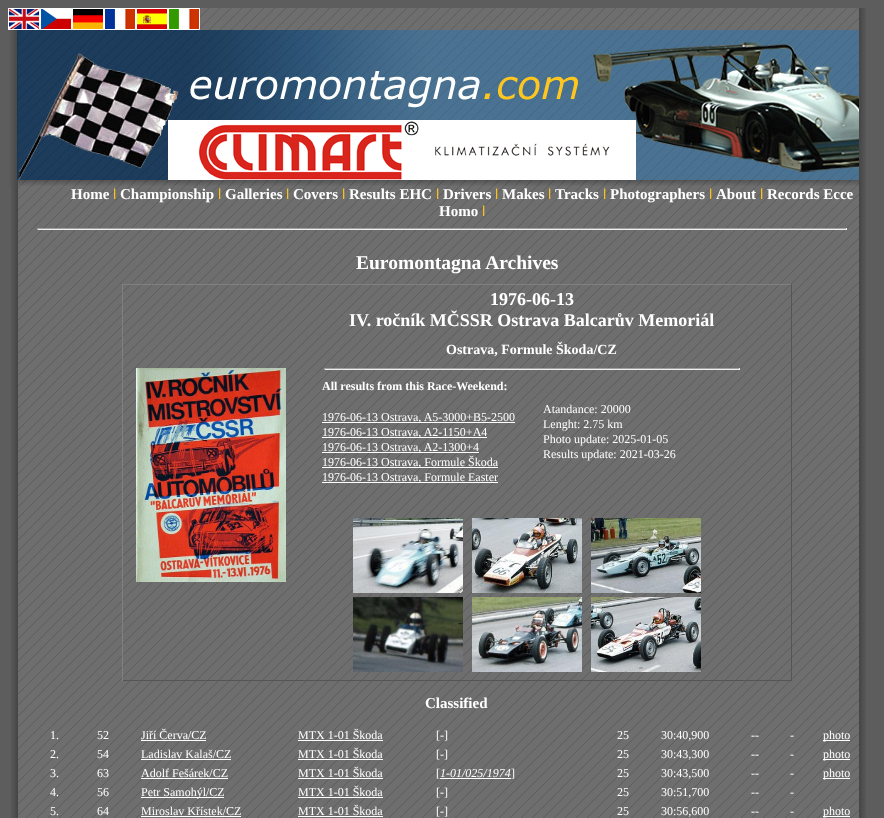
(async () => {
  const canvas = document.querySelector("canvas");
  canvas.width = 884;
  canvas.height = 818;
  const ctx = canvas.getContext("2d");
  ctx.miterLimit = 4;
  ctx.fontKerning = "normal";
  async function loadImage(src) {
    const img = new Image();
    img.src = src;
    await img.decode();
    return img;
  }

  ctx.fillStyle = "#5d5d5d";
  ctx.fillRect(0, 0, 884, 818);
  ctx.drawImage(await loadImage("img/1.png"), 11, 8, 848, 810);
  ctx.drawImage(await loadImage("img/2.png"), 8, 8, 32, 22);
  ctx.drawImage(await loadImage("img/3.png"), 40, 8, 32, 22);
  ctx.drawImage(await loadImage("img/4.png"), 72, 8, 32, 22);
  ctx.drawImage(await loadImage("img/5.png"), 104, 8, 32, 22);
  ctx.drawImage(await loadImage("img/6.png"), 136, 8, 32, 22);
  ctx.drawImage(await loadImage("img/7.png"), 168, 8, 32, 22);
  ctx.drawImage(await loadImage("img/8.png"), 859, 8, 7, 810);
  ctx.drawImage(await loadImage("img/9.png"), 8, 30, 851, 156);
  ctx.drawImage(await loadImage("img/10.png"), 168, 120, 468, 60);
  for (const [x, y, w, h, color] of [
    [37, 228, 810, 1, "#9f9f9f"],
    [846, 228, 1, 2, "#eeeeee"],
    [37, 229, 810, 1, "#eeeeee"],
    [37, 228, 1, 2, "#9f9f9f"],
    [122, 284, 670, 1, "#808080"],
    [791, 284, 1, 397, "#555555"],
    [122, 680, 670, 1, "#555555"],
    [122, 284, 1, 397, "#808080"],
  ]) {
    ctx.fillStyle = color;
    ctx.fillRect(x, y, w, h);
  }
  ctx.drawImage(await loadImage("img/11.png"), 136, 368, 150, 214);
  for (const [x, y, w, h, color] of [
    [324, 368, 416, 1, "#9f9f9f"],
    [739, 368, 1, 2, "#eeeeee"],
    [324, 369, 416, 1, "#eeeeee"],
    [324, 368, 1, 2, "#9f9f9f"],
    [322, 422, 193, 1, "#ffffff"],
    [322, 437, 165, 1, "#ffffff"],
    [322, 452, 157, 1, "#ffffff"],
    [322, 467, 176, 1, "#ffffff"],
    [322, 482, 176, 1, "#ffffff"],
  ]) {
    ctx.fillStyle = color;
    ctx.fillRect(x, y, w, h);
  }
  ctx.drawImage(await loadImage("img/12.png"), 353, 518, 110, 75);
  ctx.drawImage(await loadImage("img/13.png"), 472, 518, 110, 75);
  ctx.drawImage(await loadImage("img/14.png"), 591, 518, 110, 75);
  ctx.drawImage(await loadImage("img/15.png"), 353, 597, 110, 75);
  ctx.drawImage(await loadImage("img/16.png"), 472, 597, 110, 75);
  ctx.drawImage(await loadImage("img/17.png"), 591, 597, 110, 75);
  for (const [x, y, w, h, color] of [
    [141, 740, 65, 1, "#ffffff"],
    [298, 740, 85, 1, "#ffffff"],
    [823, 740, 27, 1, "#ffffff"],
    [141, 759, 90, 1, "#ffffff"],
    [298, 759, 85, 1, "#ffffff"],
    [823, 759, 27, 1, "#ffffff"],
    [141, 778, 87, 1, "#ffffff"],
    [298, 778, 85, 1, "#ffffff"],
    [440, 778, 71, 1, "#ffffff"],
    [823, 778, 27, 1, "#ffffff"],
    [141, 797, 83, 1, "#ffffff"],
    [298, 797, 85, 1, "#ffffff"],
    [141, 816, 100, 1, "#ffffff"],
    [298, 816, 85, 1, "#ffffff"],
    [823, 816, 27, 1, "#ffffff"],
  ]) {
    ctx.fillStyle = color;
    ctx.fillRect(x, y, w, h);
  }
  ctx.font = "bold 15px Liberation Serif";
  ctx.fillText("Home", 71, 199);
  ctx.fillStyle = "#ffc61f";
  ctx.fillText("ǀ", 113, 199);
  ctx.fillStyle = "#ffffff";
  ctx.fillText("Championship", 120, 199);
  ctx.fillStyle = "#ffc61f";
  ctx.fillText("ǀ", 218, 199);
  ctx.fillStyle = "#ffffff";
  ctx.fillText("Galleries", 225, 199);
  ctx.fillStyle = "#ffc61f";
  ctx.fillText("ǀ", 286, 199);
  ctx.fillStyle = "#ffffff";
  ctx.fillText("Covers", 293, 199);
  ctx.fillStyle = "#ffc61f";
  ctx.fillText("ǀ", 342, 199);
  ctx.fillStyle = "#ffffff";
  ctx.fillText("Results EHC", 349, 199);
  ctx.fillStyle = "#ffc61f";
  ctx.fillText("ǀ", 436, 199);
  ctx.fillStyle = "#ffffff";
  ctx.fillText("Drivers", 443, 199);
  ctx.fillStyle = "#ffc61f";
  ctx.fillText("ǀ", 495, 199);
  ctx.fillStyle = "#ffffff";
  ctx.fillText("Makes", 502, 199);
  ctx.fillStyle = "#ffc61f";
  ctx.fillText("ǀ", 548, 199);
  ctx.fillStyle = "#ffffff";
  ctx.fillText("Tracks", 555, 199);
  ctx.fillStyle = "#ffc61f";
  ctx.fillText("ǀ", 603, 199);
  ctx.fillStyle = "#ffffff";
  ctx.fillText("Photographers", 610, 199);
  ctx.fillStyle = "#ffc61f";
  ctx.fillText("ǀ", 709, 199);
  ctx.fillStyle = "#ffffff";
  ctx.fillText("About", 716, 199);
  ctx.fillStyle = "#ffc61f";
  ctx.fillText("ǀ", 760, 199);
  ctx.fillStyle = "#ffffff";
  ctx.fillText("Records Ecce", 767, 199);
  ctx.fillText("Homo", 439, 216);
  ctx.fillStyle = "#ffc61f";
  ctx.fillText("ǀ", 482, 216);
  ctx.font = "bold 19.5px Liberation Serif";
  ctx.fillStyle = "#ffffff";
  ctx.fillText("Euromontagna Archives", 356, 269);
  ctx.font = "bold 18px Liberation Serif";
  ctx.fillText("1976-06-13", 490, 305);
  ctx.fillText("IV. ročník MČSSR Ostrava Balcarův Memoriál", 349, 326);
  ctx.font = "bold 14px Liberation Serif";
  ctx.fillText("Ostrava, Formule Škoda/CZ", 446, 354);
  ctx.font = "bold 12px Liberation Serif";
  ctx.fillText("All results from this Race-Weekend:", 322, 390);
  ctx.font = "12px Liberation Serif";
  for (const [text, x, y] of [
    ["1976-06-13 Ostrava, A5-3000+B5-2500", 322, 421],
    ["1976-06-13 Ostrava, A2-1150+A4", 322, 436],
    ["1976-06-13 Ostrava, A2-1300+4", 322, 451],
    ["1976-06-13 Ostrava, Formule Škoda", 322, 466],
    ["1976-06-13 Ostrava, Formule Easter", 322, 481],
    ["Atandance: 20000", 543, 413],
    ["Lenght: 2.75 km", 543, 428],
    ["Photo update: 2025-01-05", 543, 443],
    ["Results update: 2021-03-26", 543, 458],
  ]) {
    ctx.fillText(text, x, y);
  }
  ctx.font = "bold 15px Liberation Serif";
  ctx.fillText("Classified", 425, 708);
  ctx.font = "12px Liberation Serif";
  for (const [text, x, y] of [
    ["1.", 50, 739],
    ["52", 97, 739],
    ["Jiří Červa/CZ", 141, 739],
    ["MTX 1-01 Škoda", 298, 739],
    ["[", 436, 739],
  ]) {
    ctx.fillText(text, x, y);
  }
  ctx.font = "italic 12px Liberation Serif";
  ctx.fillText("-", 440, 739);
  ctx.font = "12px Liberation Serif";
  for (const [text, x, y] of [
    ["]", 444, 739],
    ["25", 617, 739],
    ["30:40,900", 661, 739],
    ["--", 751, 739],
    ["-", 790, 739],
    ["photo", 823, 739],
    ["2.", 50, 758],
    ["54", 97, 758],
    ["Ladislav Kalaš/CZ", 141, 758],
    ["MTX 1-01 Škoda", 298, 758],
    ["[", 436, 758],
  ]) {
    ctx.fillText(text, x, y);
  }
  ctx.font = "italic 12px Liberation Serif";
  ctx.fillText("-", 440, 758);
  ctx.font = "12px Liberation Serif";
  for (const [text, x, y] of [
    ["]", 444, 758],
    ["25", 617, 758],
    ["30:43,300", 661, 758],
    ["--", 751, 758],
    ["-", 790, 758],
    ["photo", 823, 758],
    ["3.", 50, 777],
    ["63", 97, 777],
    ["Adolf Fešárek/CZ", 141, 777],
    ["MTX 1-01 Škoda", 298, 777],
    ["[", 436, 777],
  ]) {
    ctx.fillText(text, x, y);
  }
  ctx.font = "italic 12px Liberation Serif";
  ctx.fillText("1-01/025/1974", 440, 777);
  ctx.font = "12px Liberation Serif";
  for (const [text, x, y] of [
    ["]", 511, 777],
    ["25", 617, 777],
    ["30:43,500", 661, 777],
    ["--", 751, 777],
    ["-", 790, 777],
    ["photo", 823, 777],
    ["4.", 50, 796],
    ["56", 97, 796],
    ["Petr Samohýl/CZ", 141, 796],
    ["MTX 1-01 Škoda", 298, 796],
    ["[", 436, 796],
  ]) {
    ctx.fillText(text, x, y);
  }
  ctx.font = "italic 12px Liberation Serif";
  ctx.fillText("-", 440, 796);
  ctx.font = "12px Liberation Serif";
  for (const [text, x, y] of [
    ["]", 444, 796],
    ["25", 617, 796],
    ["30:51,700", 661, 796],
    ["--", 751, 796],
    ["-", 790, 796],
    ["5.", 50, 815],
    ["64", 97, 815],
    ["Miroslav Křístek/CZ", 141, 815],
    ["MTX 1-01 Škoda", 298, 815],
    ["[", 436, 815],
  ]) {
    ctx.fillText(text, x, y);
  }
  ctx.font = "italic 12px Liberation Serif";
  ctx.fillText("-", 440, 815);
  ctx.font = "12px Liberation Serif";
  for (const [text, x, y] of [
    ["]", 444, 815],
    ["25", 617, 815],
    ["30:56,600", 661, 815],
    ["--", 751, 815],
    ["-", 790, 815],
    ["photo", 823, 815],
  ]) {
    ctx.fillText(text, x, y);
  }
})();
